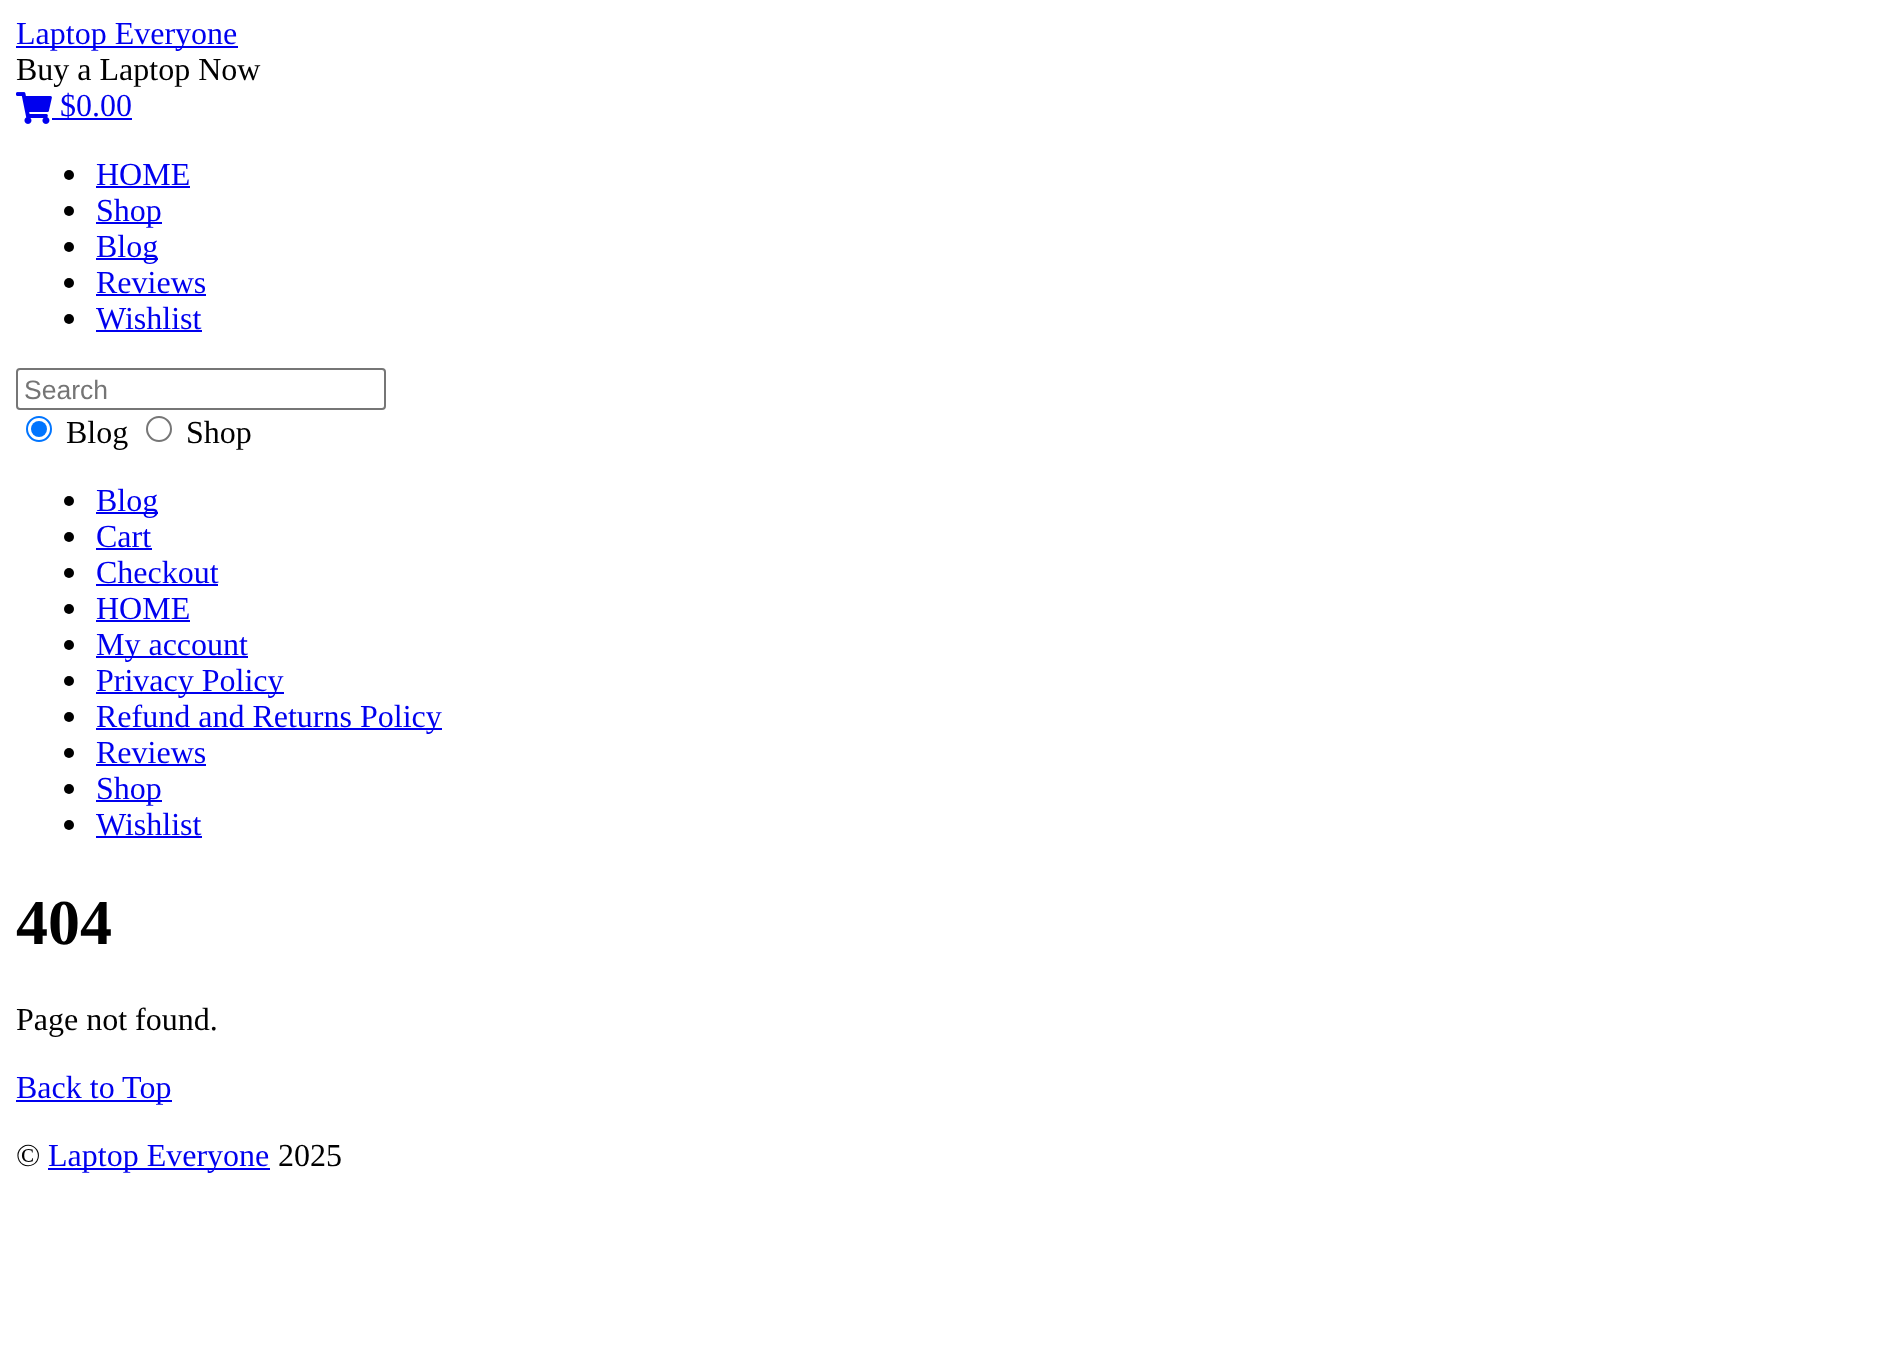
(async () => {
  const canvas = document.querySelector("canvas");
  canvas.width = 1899;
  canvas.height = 1367;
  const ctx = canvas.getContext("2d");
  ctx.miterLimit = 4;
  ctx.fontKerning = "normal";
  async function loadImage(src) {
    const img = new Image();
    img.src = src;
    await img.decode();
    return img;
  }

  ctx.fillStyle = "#ffffff";
  ctx.fillRect(0, 0, 1899, 1367);
  ctx.fillStyle = "#0000ee";
  ctx.fillRect(16, 46, 222, 2);
  ctx.drawImage(await loadImage("img/1.png"), 16, 92, 36, 32);
  ctx.fillRect(52, 118, 80, 2);
  ctx.fillStyle = "#000000";
  ctx.beginPath();
  ctx.arc(69, 175, 5, 0, Math.PI * 2);
  ctx.fill();
  ctx.fillStyle = "#0000ee";
  ctx.fillRect(96, 186, 94, 2);
  ctx.fillStyle = "#000000";
  ctx.beginPath();
  ctx.arc(69, 211, 5, 0, Math.PI * 2);
  ctx.fill();
  ctx.fillStyle = "#0000ee";
  ctx.fillRect(96, 222, 66, 2);
  ctx.fillStyle = "#000000";
  ctx.beginPath();
  ctx.arc(69, 247, 5, 0, Math.PI * 2);
  ctx.fill();
  ctx.fillStyle = "#0000ee";
  ctx.fillRect(96, 258, 62, 2);
  ctx.fillStyle = "#000000";
  ctx.beginPath();
  ctx.arc(69, 283, 5, 0, Math.PI * 2);
  ctx.fill();
  ctx.fillStyle = "#0000ee";
  ctx.fillRect(96, 294, 110, 2);
  ctx.fillStyle = "#000000";
  ctx.beginPath();
  ctx.arc(69, 319, 5, 0, Math.PI * 2);
  ctx.fill();
  ctx.fillStyle = "#0000ee";
  ctx.fillRect(96, 330, 106, 2);
  ctx.beginPath();
  ctx.roundRect(17, 369, 368, 40, 3);
  ctx.strokeStyle = "#767676";
  ctx.lineWidth = 2;
  ctx.stroke();
  ctx.beginPath();
  ctx.arc(39, 429, 12, 0, Math.PI * 2);
  ctx.strokeStyle = "#0075ff";
  ctx.stroke();
  ctx.fillStyle = "#0075ff";
  ctx.beginPath();
  ctx.arc(39, 429, 8, 0, Math.PI * 2);
  ctx.fill();
  ctx.beginPath();
  ctx.arc(159, 429, 12, 0, Math.PI * 2);
  ctx.strokeStyle = "#767676";
  ctx.stroke();
  ctx.fillStyle = "#000000";
  ctx.beginPath();
  ctx.arc(69, 501, 5, 0, Math.PI * 2);
  ctx.fill();
  ctx.fillStyle = "#0000ee";
  ctx.fillRect(96, 512, 62, 2);
  ctx.fillStyle = "#000000";
  ctx.beginPath();
  ctx.arc(69, 537, 5, 0, Math.PI * 2);
  ctx.fill();
  ctx.fillStyle = "#0000ee";
  ctx.fillRect(96, 548, 56, 2);
  ctx.fillStyle = "#000000";
  ctx.beginPath();
  ctx.arc(69, 573, 5, 0, Math.PI * 2);
  ctx.fill();
  ctx.fillStyle = "#0000ee";
  ctx.fillRect(96, 584, 122, 2);
  ctx.fillStyle = "#000000";
  ctx.beginPath();
  ctx.arc(69, 609, 5, 0, Math.PI * 2);
  ctx.fill();
  ctx.fillStyle = "#0000ee";
  ctx.fillRect(96, 620, 94, 2);
  ctx.fillStyle = "#000000";
  ctx.beginPath();
  ctx.arc(69, 645, 5, 0, Math.PI * 2);
  ctx.fill();
  ctx.fillStyle = "#0000ee";
  ctx.fillRect(96, 656, 152, 2);
  ctx.fillStyle = "#000000";
  ctx.beginPath();
  ctx.arc(69, 681, 5, 0, Math.PI * 2);
  ctx.fill();
  ctx.fillStyle = "#0000ee";
  ctx.fillRect(96, 692, 188, 2);
  ctx.fillStyle = "#000000";
  ctx.beginPath();
  ctx.arc(69, 717, 5, 0, Math.PI * 2);
  ctx.fill();
  ctx.fillStyle = "#0000ee";
  ctx.fillRect(96, 728, 346, 2);
  ctx.fillStyle = "#000000";
  ctx.beginPath();
  ctx.arc(69, 753, 5, 0, Math.PI * 2);
  ctx.fill();
  ctx.fillStyle = "#0000ee";
  ctx.fillRect(96, 764, 110, 2);
  ctx.fillStyle = "#000000";
  ctx.beginPath();
  ctx.arc(69, 789, 5, 0, Math.PI * 2);
  ctx.fill();
  ctx.fillStyle = "#0000ee";
  ctx.fillRect(96, 800, 66, 2);
  ctx.fillStyle = "#000000";
  ctx.beginPath();
  ctx.arc(69, 825, 5, 0, Math.PI * 2);
  ctx.fill();
  for (const [x, y, w, h, color] of [
    [96, 836, 106, 2, "#0000ee"],
    [16, 1100, 156, 2, "#0000ee"],
    [48, 1168, 222, 2, "#0000ee"],
  ]) {
    ctx.fillStyle = color;
    ctx.fillRect(x, y, w, h);
  }
  ctx.font = "32px Liberation Serif";
  ctx.fillText("Laptop Everyone", 16, 44);
  ctx.fillStyle = "#000000";
  ctx.fillText("Buy a Laptop Now", 16, 80);
  ctx.fillStyle = "#0000ee";
  for (const [text, x, y] of [
    ["$0.00", 60, 116],
    ["HOME", 96, 185],
    ["Shop", 96, 221],
    ["Blog", 96, 257],
    ["Reviews", 96, 293],
    ["Wishlist", 96, 329],
  ]) {
    ctx.fillText(text, x, y);
  }
  ctx.font = "26.5px Liberation Sans";
  ctx.fillStyle = "#757575";
  ctx.fillText("Search", 24, 399);
  ctx.font = "32px Liberation Serif";
  ctx.fillStyle = "#000000";
  ctx.fillText("Blog", 66, 443);
  ctx.fillText("Shop", 186, 443);
  ctx.fillStyle = "#0000ee";
  for (const [text, x, y] of [
    ["Blog", 96, 511],
    ["Cart", 96, 547],
    ["Checkout", 96, 583],
    ["HOME", 96, 619],
    ["My account", 96, 655],
    ["Privacy Policy", 96, 691],
    ["Refund and Returns Policy", 96, 727],
    ["Reviews", 96, 763],
    ["Shop", 96, 799],
    ["Wishlist", 96, 835],
  ]) {
    ctx.fillText(text, x, y);
  }
  ctx.font = "bold 64px Liberation Serif";
  ctx.fillStyle = "#000000";
  ctx.fillText("404", 16, 944);
  ctx.font = "32px Liberation Serif";
  ctx.fillText("Page not found.", 16, 1030);
  ctx.fillStyle = "#0000ee";
  ctx.fillText("Back to Top", 16, 1098);
  ctx.fillStyle = "#000000";
  ctx.fillText("©", 16, 1166);
  ctx.fillStyle = "#0000ee";
  ctx.fillText("Laptop Everyone", 48, 1166);
  ctx.fillStyle = "#000000";
  ctx.fillText("2025", 278, 1166);
})();
